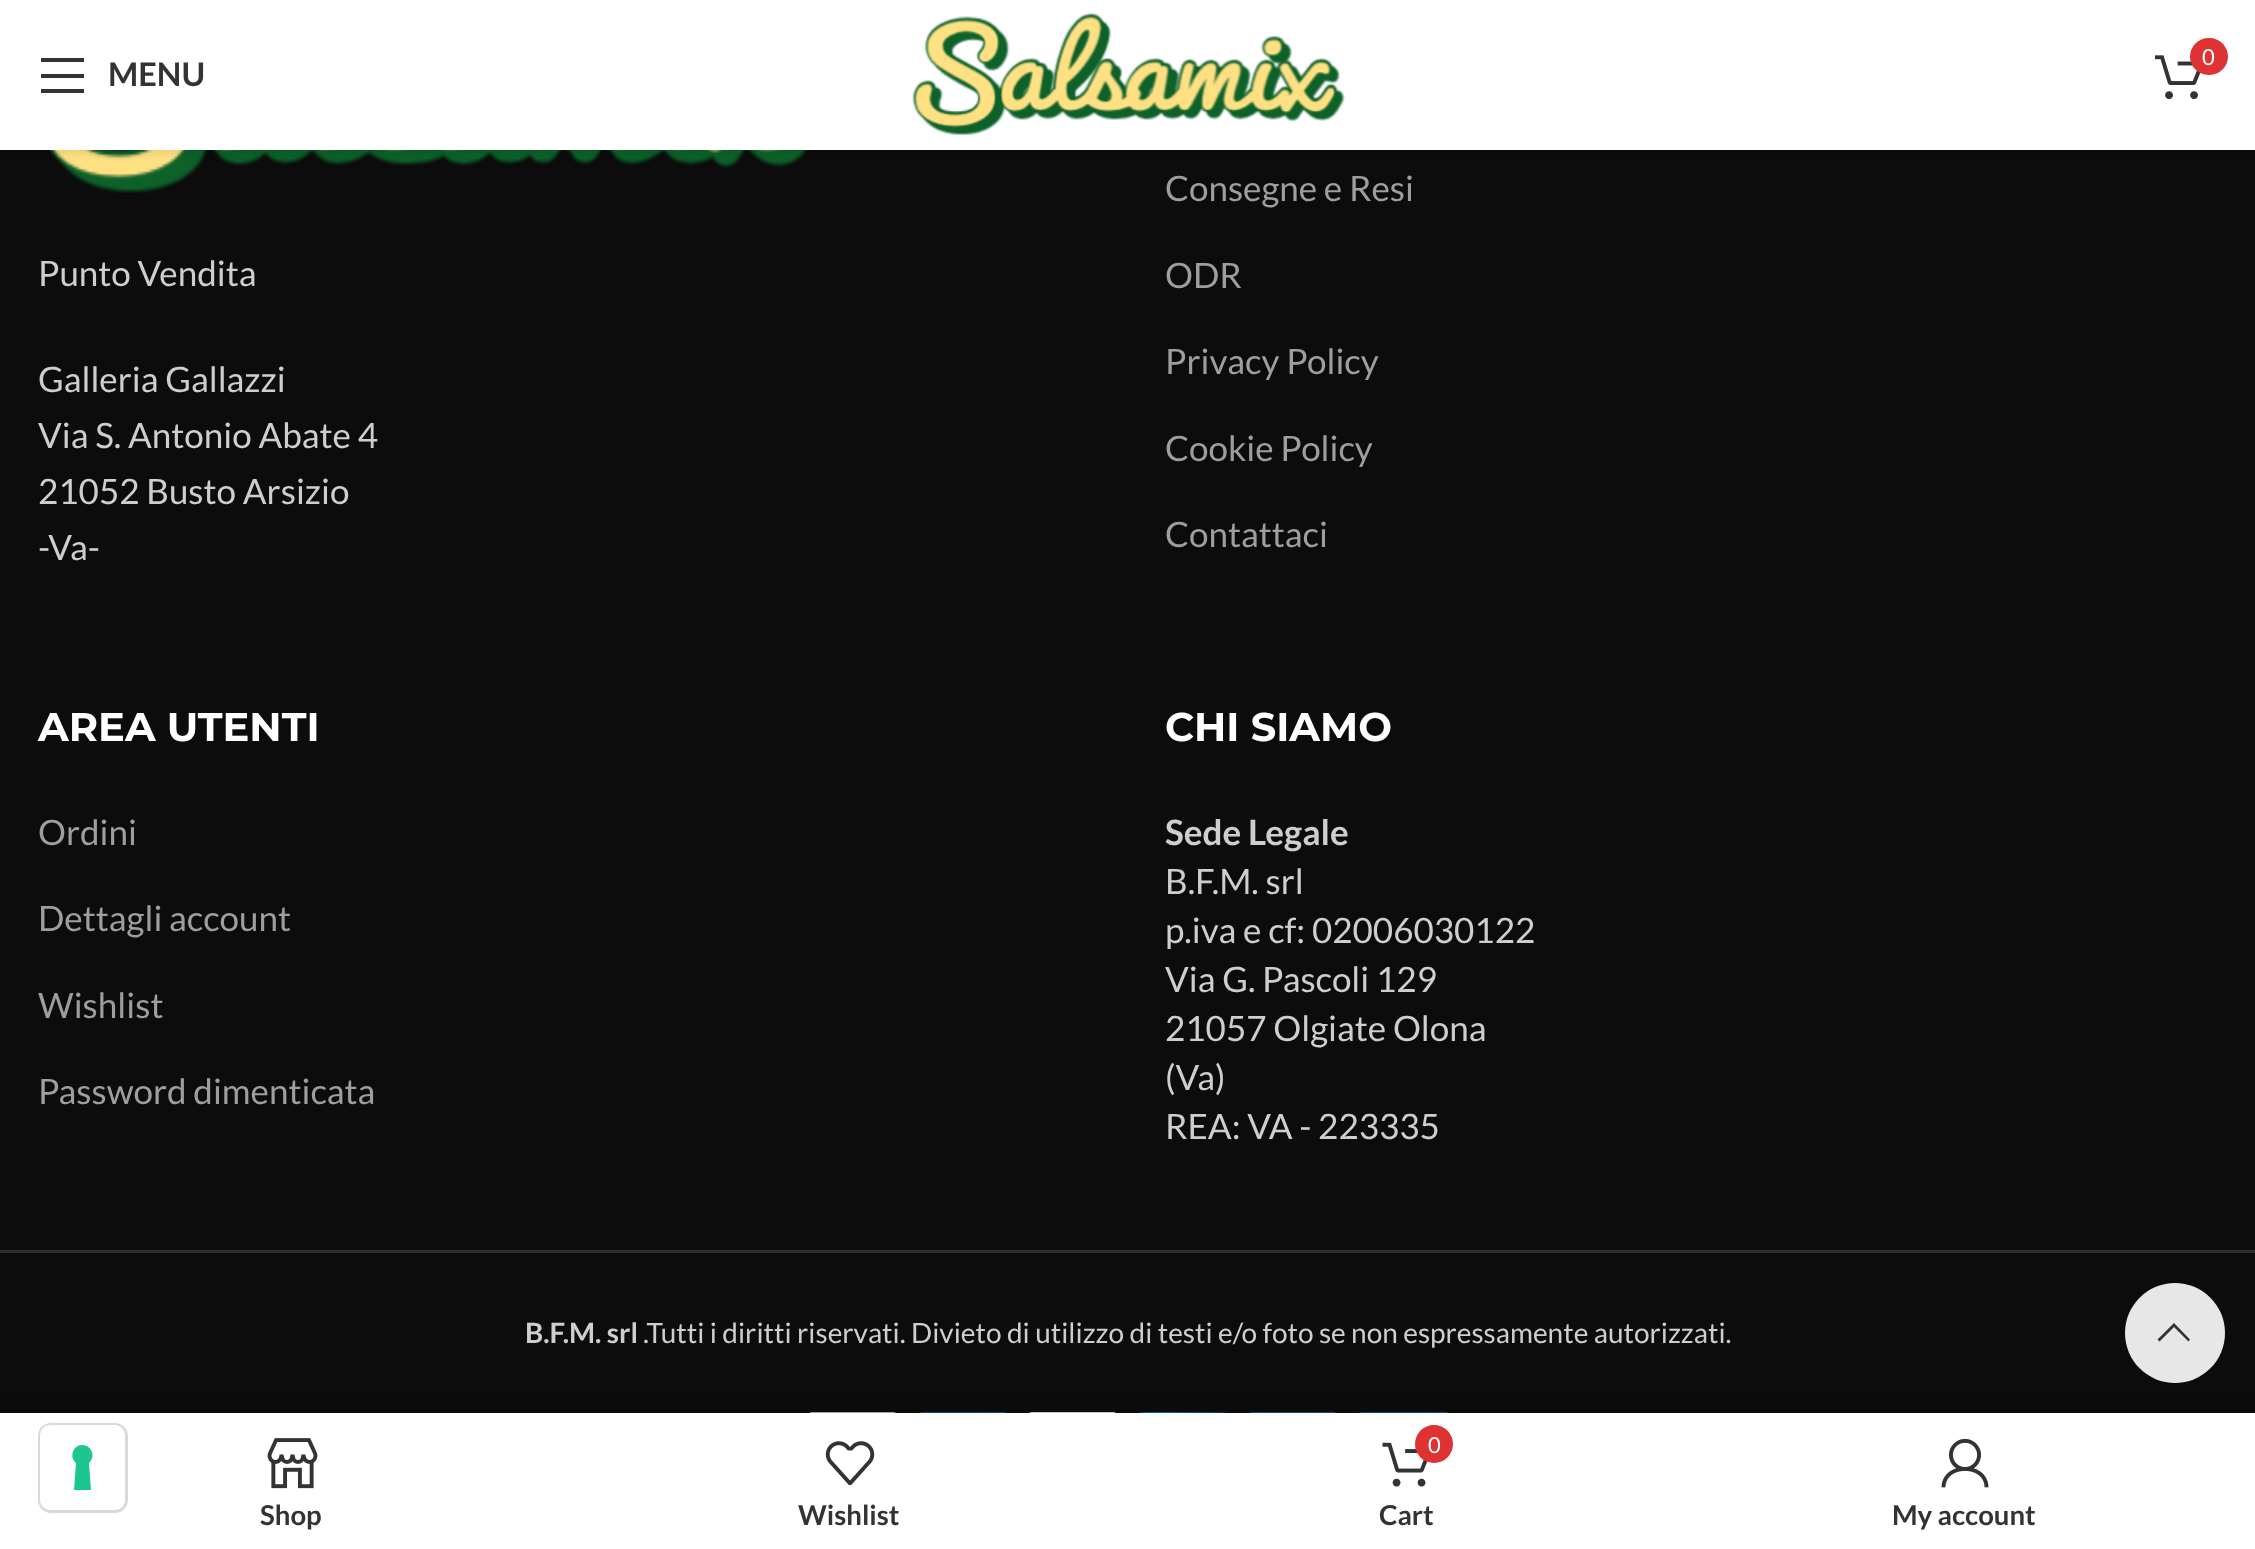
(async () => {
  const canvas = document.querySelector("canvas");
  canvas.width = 2255;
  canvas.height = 1549;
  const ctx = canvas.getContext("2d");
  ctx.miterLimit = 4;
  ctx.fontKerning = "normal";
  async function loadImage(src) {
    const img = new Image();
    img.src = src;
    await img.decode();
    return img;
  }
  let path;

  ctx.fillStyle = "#0c0c0c";
  ctx.fillRect(0, 0, 2255, 1549);
  ctx.drawImage(await loadImage("img/3.png"), 48, 150, 761, 43);
  ctx.fillStyle = "rgba(0, 0, 0, 0.1)";
  ctx.filter = "blur(4px)";
  ctx.beginPath();
  ctx.rect(0, 3, 2255, 150);
  ctx.fill();
  ctx.filter = "none";
  ctx.fillStyle = "#ffffff";
  ctx.fillRect(0, 0, 2255, 150);
  ctx.drawImage(await loadImage("img/1.png"), 912, 12, 434, 124);
  ctx.drawImage(await loadImage("img/2.png"), 2155, 55, 46, 45);
  ctx.fillStyle = "#dd3333";
  ctx.beginPath();
  ctx.roundRect(2190, 38, 38, 37, 18.5);
  ctx.fill();
  ctx.fillStyle = "#333333";
  path = new Path2D("M41 62H84V58H41ZM41 78H84V74H41ZM41 93H84V89H41Z");
  ctx.fill(path);
  ctx.fillStyle = "#303030";
  ctx.fillRect(0, 1250, 2255, 3);
  ctx.drawImage(await loadImage("img/4.png"), 810, 1412, 638, 1);
  ctx.fillStyle = "#e7e7e7";
  ctx.beginPath();
  ctx.arc(2175, 1333, 50, 0, Math.PI * 2);
  ctx.fill();
  ctx.fillStyle = "#333333";
  path = new Path2D("M2188.5 1341.5L2190 1339.5L2174 1323L2157.5 1339.5L2159.5 1341.5L2174 1327Z");
  ctx.fill(path);
  ctx.fillStyle = "rgba(0, 0, 0, 0.12)";
  ctx.filter = "blur(11px)";
  ctx.beginPath();
  ctx.rect(0, 1413, 2255, 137);
  ctx.fill();
  ctx.filter = "none";
  ctx.fillStyle = "#ffffff";
  ctx.fillRect(0, 1413, 2255, 136);
  ctx.beginPath();
  ctx.roundRect(39.5, 1424.5, 87, 87, 11.5);
  ctx.strokeStyle = "#d9d9d9";
  ctx.lineWidth = 3;
  ctx.stroke();
  ctx.beginPath();
  ctx.roundRect(40, 1425, 85, 85, 10);
  ctx.fill();
  ctx.fillStyle = "#1cc691";
  path = new Path2D("M82 1445C92 1445 96 1457 89 1463L91 1490H74L76 1463C69 1457 73 1445 82 1445Z");
  ctx.fill(path, "evenodd");
  ctx.drawImage(await loadImage("img/5.png"), 267, 1438, 51, 51);
  ctx.drawImage(await loadImage("img/6.png"), 825, 1441, 50, 44);
  ctx.drawImage(await loadImage("img/7.png"), 1382, 1442, 46, 45);
  ctx.fillStyle = "#dd3333";
  ctx.beginPath();
  ctx.arc(1434, 1444, 19, 0, Math.PI * 2);
  ctx.fill();
  ctx.drawImage(await loadImage("img/8.png"), 1941, 1438, 48, 50);
  ctx.font = "22px Lato";
  ctx.fillStyle = "#ffffff";
  ctx.fillText("0", 2202, 65);
  ctx.font = "bold 32.5px Lato";
  ctx.fillStyle = "#333333";
  ctx.fillText("MENU", 108, 86);
  ctx.font = "35px Lato";
  ctx.fillStyle = "#cecece";
  for (const [text, x, y] of [
    ["Punto Vendita", 38, 286],
    ["Galleria Gallazzi", 38, 392],
    ["Via S. Antonio Abate 4", 38, 448],
    ["21052 Busto Arsizio", 38, 504],
    ["-Va-", 38, 560],
  ]) {
    ctx.fillText(text, x, y);
  }
  ctx.fillStyle = "#9e9e9e";
  for (const [text, x, y] of [
    ["Consegne e Resi", 1165, 201],
    ["ODR", 1165, 288],
    ["Privacy Policy", 1165, 374],
    ["Cookie Policy", 1165, 461],
    ["Contattaci", 1165, 547],
  ]) {
    ctx.fillText(text, x, y);
  }
  ctx.font = "bold 40px Montserrat";
  ctx.fillStyle = "#ffffff";
  ctx.fillText("AREA UTENTI", 38, 741);
  ctx.font = "35px Lato";
  ctx.fillStyle = "#9e9e9e";
  for (const [text, x, y] of [
    ["Ordini", 38, 845],
    ["Dettagli account", 38, 931],
    ["Wishlist", 38, 1018],
    ["Password dimenticata", 38, 1104],
  ]) {
    ctx.fillText(text, x, y);
  }
  ctx.font = "bold 40px Montserrat";
  ctx.fillStyle = "#ffffff";
  ctx.fillText("CHI SIAMO", 1165, 741);
  ctx.font = "bold 35px Lato";
  ctx.fillStyle = "#cecece";
  ctx.fillText("Sede Legale", 1165, 845);
  ctx.font = "35px Lato";
  for (const [text, x, y] of [
    ["B.F.M. srl", 1165, 894],
    ["p.iva e cf: 02006030122", 1165, 943],
    ["Via G. Pascoli 129", 1165, 992],
    ["21057 Olgiate Olona", 1165, 1041],
    ["(Va)", 1165, 1090],
    ["REA: VA - 223335", 1165, 1139],
  ]) {
    ctx.fillText(text, x, y);
  }
  ctx.font = "bold 28px Lato";
  ctx.fillText("B.F.M. srl", 525, 1343);
  ctx.font = "28px Lato";
  ctx.fillText(".Tutti i diritti riservati. Divieto di utilizzo di testi e/o foto se non espressamente autorizzati.", 643, 1343);
  ctx.font = "bold 27.5px Lato";
  ctx.fillStyle = "#333333";
  ctx.fillText("Shop", 260, 1525);
  ctx.fillText("Wishlist", 798, 1525);
  ctx.font = "22px Lato";
  ctx.fillStyle = "#ffffff";
  ctx.fillText("0", 1428, 1453);
  ctx.font = "bold 27.5px Lato";
  ctx.fillStyle = "#333333";
  ctx.fillText("Cart", 1379, 1525);
  ctx.fillText("My account", 1892, 1525);
})();
